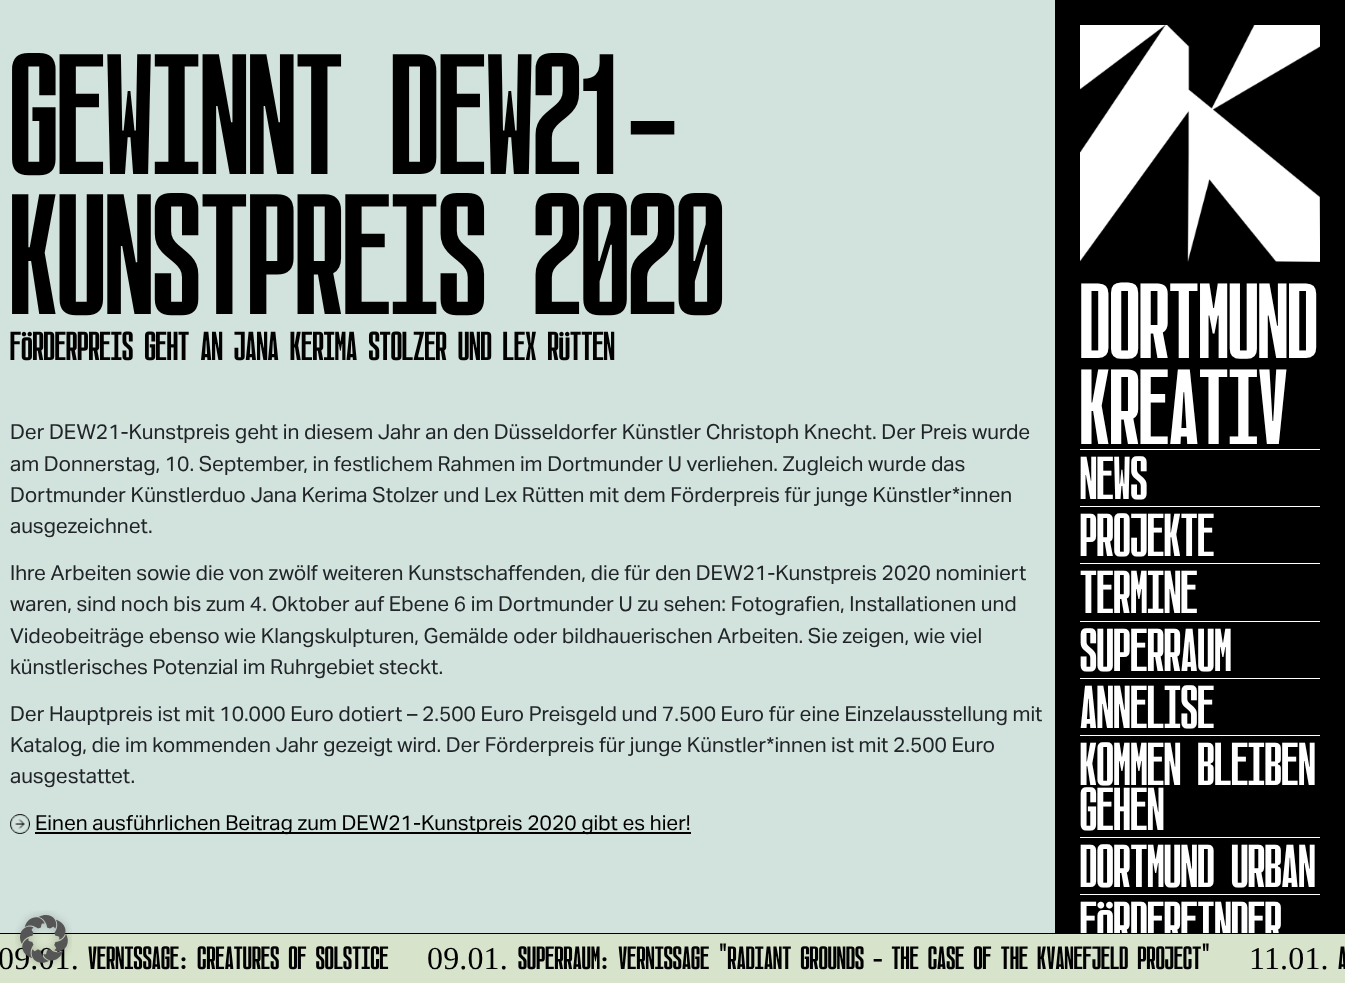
(async () => {
  const canvas = document.querySelector("canvas");
  canvas.width = 1345;
  canvas.height = 983;
  const ctx = canvas.getContext("2d");
  ctx.miterLimit = 4;
  ctx.fontKerning = "normal";
  async function loadImage(src) {
    const img = new Image();
    img.src = src;
    await img.decode();
    return img;
  }

  ctx.fillStyle = "#d2e2dc";
  ctx.fillRect(0, 0, 1345, 983);
  ctx.drawImage(await loadImage("img/1.png"), 10, 814, 20, 20);
  ctx.fillStyle = "#000000";
  ctx.fillRect(35, 832, 656, 2);
  ctx.fillRect(1055, 0, 290, 933);
  ctx.drawImage(await loadImage("img/2.png"), 1080, 25, 240, 237);
  for (const [x, y, w, h, color] of [
    [1080, 449, 240, 1, "#ffffff"],
    [1080, 506, 240, 1, "#ffffff"],
    [1080, 563, 240, 1, "#ffffff"],
    [1080, 621, 240, 1, "#ffffff"],
    [1080, 678, 240, 1, "#ffffff"],
    [1080, 735, 240, 1, "#ffffff"],
    [1080, 837, 240, 1, "#ffffff"],
    [1080, 894, 240, 1, "#ffffff"],
  ]) {
    ctx.fillStyle = color;
    ctx.fillRect(x, y, w, h);
  }
  ctx.font = "170px 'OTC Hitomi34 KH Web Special'";
  ctx.fillStyle = "#000000";
  ctx.fillText("GEWINNT DEW21-", 10, 174);
  ctx.fillText("KUNSTPREIS 2020", 10, 314);
  ctx.font = "40px 'OTC Hitomi34 KH Web Special'";
  ctx.fillText("FÖRDERPREIS GEHT AN JANA KERIMA STOLZER UND LEX RÜTTEN", 10, 360);
  ctx.font = "20.8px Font";
  ctx.fillStyle = "#212529";
  for (const [text, x, y] of [
    ["Der DEW21-Kunstpreis geht in diesem Jahr an den Düsseldorfer Künstler Christoph Knecht. Der Preis wurde", 10, 439],
    ["am Donnerstag, 10. September, in festlichem Rahmen im Dortmunder U verliehen. Zugleich wurde das", 10, 471],
    ["Dortmunder Künstlerduo Jana Kerima Stolzer und Lex Rütten mit dem Förderpreis für junge Künstler*innen", 10, 502],
    ["ausgezeichnet.", 10, 533],
    ["Ihre Arbeiten sowie die von zwölf weiteren Kunstschaffenden, die für den DEW21-Kunstpreis 2020 nominiert", 10, 580],
    ["waren, sind noch bis zum 4. Oktober auf Ebene 6 im Dortmunder U zu sehen: Fotografien, Installationen und", 10, 611],
    ["Videobeiträge ebenso wie Klangskulpturen, Gemälde oder bildhauerischen Arbeiten. Sie zeigen, wie viel", 10, 643],
    ["künstlerisches Potenzial im Ruhrgebiet steckt.", 10, 674],
    ["Der Hauptpreis ist mit 10.000 Euro dotiert – 2.500 Euro Preisgeld und 7.500 Euro für eine Einzelausstellung mit", 10, 721],
    ["Katalog, die im kommenden Jahr gezeigt wird. Der Förderpreis für junge Künstler*innen ist mit 2.500 Euro", 10, 752],
    ["ausgestattet.", 10, 783],
  ]) {
    ctx.fillText(text, x, y);
  }
  ctx.fillStyle = "#000000";
  ctx.fillText("Einen ausführlichen Beitrag zum DEW21-Kunstpreis 2020 gibt es hier!", 35, 830);
  ctx.font = "106px 'OTC Hitomi34 KH Web Special'";
  ctx.fillStyle = "#ffffff";
  ctx.fillText("DORTMUND", 1080, 358);
  ctx.fillText("KREATIV", 1080, 444);
  ctx.font = "60px 'OTC Hitomi34 KH Web Special'";
  for (const [text, x, y] of [
    ["NEWS", 1080, 499],
    ["PROJEKTE", 1080, 556],
    ["TERMINE", 1080, 613],
    ["SUPERRAUM", 1080, 671],
    ["ANNELISE", 1080, 728],
    ["KOMMEN BLEIBEN", 1080, 785],
    ["GEHEN", 1080, 830],
    ["DORTMUND URBAN", 1080, 887],
    ["FÖRDERFINDER", 1080, 944],
  ]) {
    ctx.fillText(text, x, y);
  }
  ctx.fillStyle = "#d7e3ca";
  ctx.fillRect(0, 934, 1345, 49);
  ctx.fillStyle = "#000000";
  ctx.fillRect(0, 933, 1345, 1);
  ctx.letterSpacing = "0.15px";
  ctx.font = "32px Liberation Serif";
  ctx.fillText("09.01.", -2, 969);
  ctx.font = "32px 'OTC Hitomi34 KH Web Special'";
  ctx.fillText("VERNISSAGE: CREATURES OF SOLSTICE", 88, 969);
  ctx.font = "32px Liberation Serif";
  ctx.fillText("09.01.", 427, 969);
  ctx.font = "32px 'OTC Hitomi34 KH Web Special'";
  ctx.fillText("SUPERRAUM: VERNISSAGE \"RADIANT GROUNDS - THE CASE OF THE KVANEFJELD PROJECT\"", 518, 969);
  ctx.font = "32px Liberation Serif";
  ctx.fillText("11.01.", 1249, 969);
  ctx.font = "32px 'OTC Hitomi34 KH Web Special'";
  ctx.fillText("A", 1338, 969);
  ctx.drawImage(await loadImage("img/3.png"), 15, 910, 57, 57);
})();
